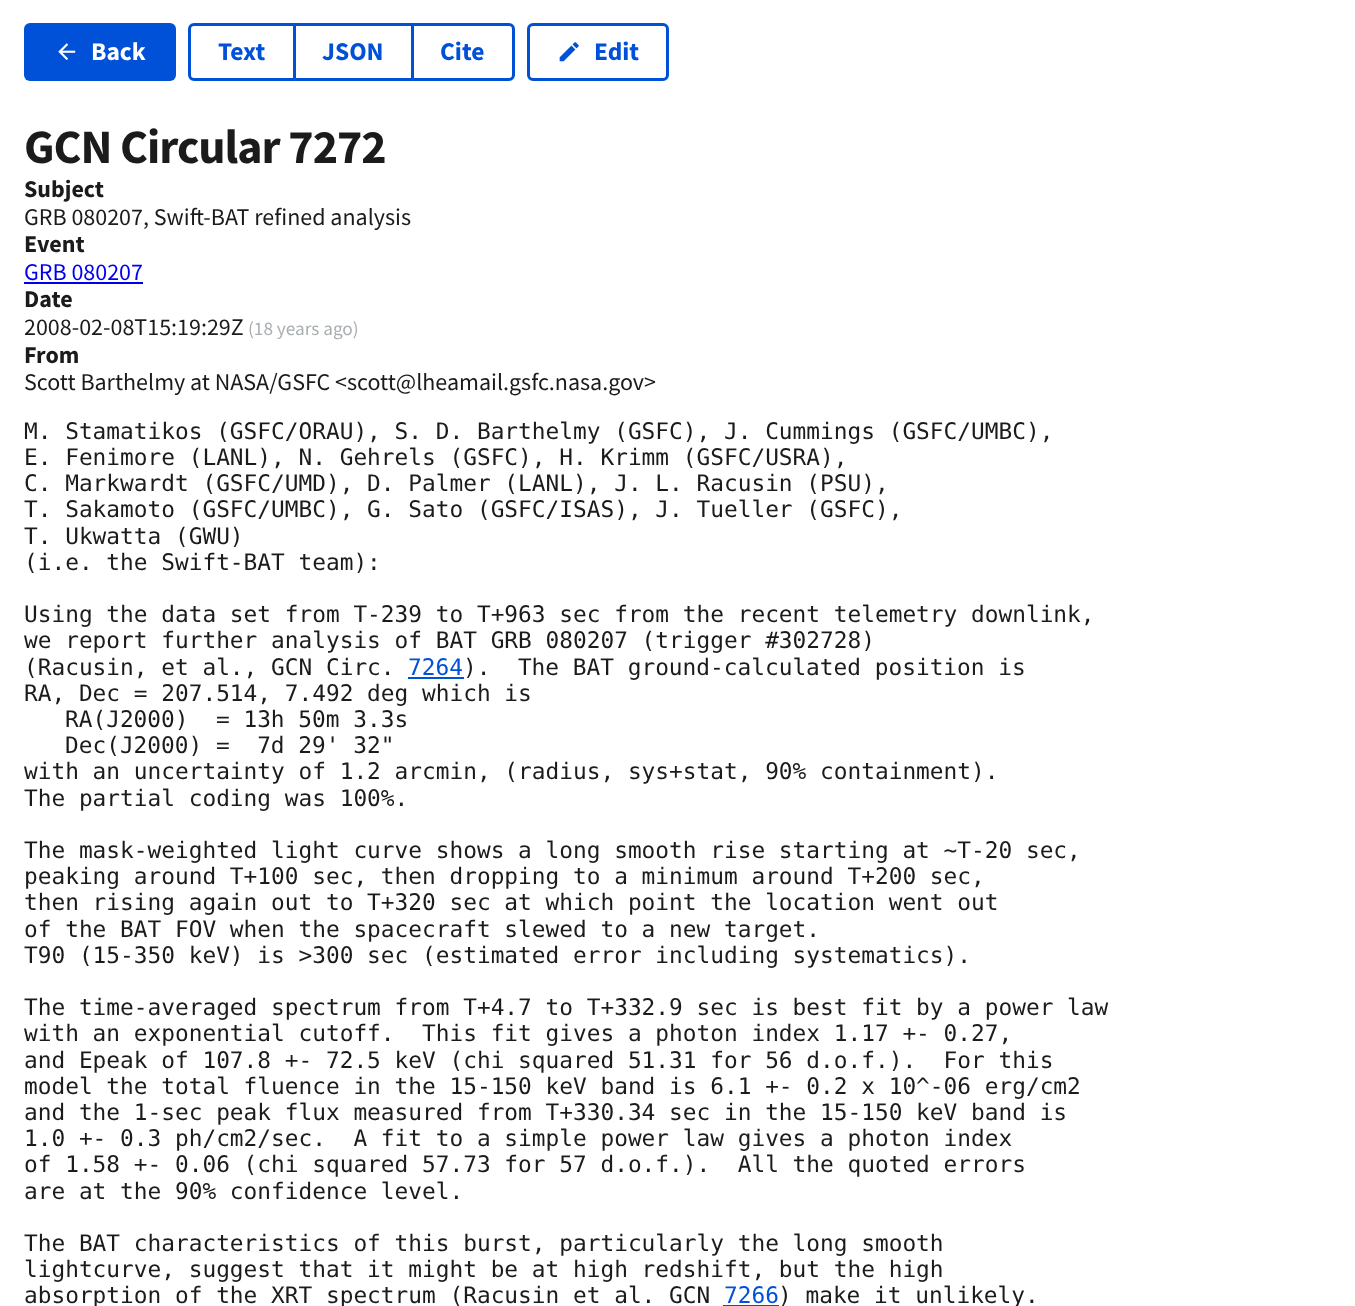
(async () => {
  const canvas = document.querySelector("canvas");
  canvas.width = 1355;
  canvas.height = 1306;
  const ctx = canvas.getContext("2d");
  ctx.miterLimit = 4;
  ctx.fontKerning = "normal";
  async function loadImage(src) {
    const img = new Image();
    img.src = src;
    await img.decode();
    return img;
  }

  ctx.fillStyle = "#ffffff";
  ctx.fillRect(0, 0, 1355, 1306);
  ctx.fillStyle = "#0050d8";
  ctx.beginPath();
  ctx.roundRect(24, 23, 152, 58, 6);
  ctx.fill();
  ctx.drawImage(await loadImage("img/1.png"), 58, 43, 18, 18);
  ctx.beginPath();
  ctx.roundRect(189.5, 24.5, 105, 55, [4.5, 0, 0, 4.5]);
  ctx.strokeStyle = "#0050d8";
  ctx.lineWidth = 3;
  ctx.stroke();
  ctx.strokeRect(294.5, 24.5, 118, 55);
  ctx.beginPath();
  ctx.roundRect(412.5, 24.5, 101, 55, [0, 4.5, 4.5, 0]);
  ctx.stroke();
  ctx.beginPath();
  ctx.roundRect(528.5, 24.5, 139, 55, 4.5);
  ctx.stroke();
  ctx.drawImage(await loadImage("img/2.png"), 559, 42, 20, 20);
  for (const [x, y, w, h, color] of [
    [24, 282, 119, 2, "#0000ee"],
    [408, 677, 56, 2, "#0050d8"],
    [723, 1305, 56, 1, "#0050d8"],
  ]) {
    ctx.fillStyle = color;
    ctx.fillRect(x, y, w, h);
  }
  ctx.font = "bold 25.5px Source Sans Pro";
  ctx.fillStyle = "#ffffff";
  ctx.fillText("Back", 91, 60);
  ctx.fillStyle = "#0050d8";
  for (const [text, x, y] of [
    ["Text", 218, 60],
    ["JSON", 322, 60],
    ["Cite", 440, 60],
    ["Edit", 594, 60],
  ]) {
    ctx.fillText(text, x, y);
  }
  ctx.letterSpacing = "-1px";
  ctx.font = "bold 48px Source Sans Pro";
  ctx.fillStyle = "#1b1b1b";
  ctx.fillText("GCN Circular 7272", 24, 163);
  ctx.letterSpacing = "0px";
  ctx.font = "bold 24px Source Sans Pro";
  ctx.fillText("Subject", 24, 197);
  ctx.font = "24px Source Sans Pro";
  ctx.fillText("GRB 080207, Swift-BAT refined analysis", 24, 225);
  ctx.font = "bold 24px Source Sans Pro";
  ctx.fillText("Event", 24, 252);
  ctx.font = "24px Source Sans Pro";
  ctx.fillStyle = "#0000ee";
  ctx.fillText("GRB 080207", 24, 280);
  ctx.font = "bold 24px Source Sans Pro";
  ctx.fillStyle = "#1b1b1b";
  ctx.fillText("Date", 24, 307);
  ctx.font = "24px Source Sans Pro";
  ctx.fillText("2008-02-08T15:19:29Z", 24, 335);
  ctx.font = "19.25px Source Sans Pro";
  ctx.fillStyle = "#a9aeb1";
  ctx.fillText("(18 years ago)", 248, 335);
  ctx.font = "bold 24px Source Sans Pro";
  ctx.fillStyle = "#1b1b1b";
  ctx.fillText("From", 24, 363);
  ctx.font = "24px Source Sans Pro";
  ctx.fillText("Scott Barthelmy at NASA/GSFC <scott@lheamail.gsfc.nasa.gov>", 24, 390);
  ctx.font = "22.8px DejaVu Sans Mono";
  for (const [text, x, y] of [
    ["M. Stamatikos (GSFC/ORAU), S. D. Barthelmy (GSFC), J. Cummings (GSFC/UMBC),", 24, 439],
    ["E. Fenimore (LANL), N. Gehrels (GSFC), H. Krimm (GSFC/USRA),", 24, 465],
    ["C. Markwardt (GSFC/UMD), D. Palmer (LANL), J. L. Racusin (PSU),", 24, 491],
    ["T. Sakamoto (GSFC/UMBC), G. Sato (GSFC/ISAS), J. Tueller (GSFC),", 24, 517],
    ["T. Ukwatta (GWU)", 24, 544],
    ["(i.e. the Swift-BAT team):", 24, 570],
    ["Using the data set from T-239 to T+963 sec from the recent telemetry downlink,", 24, 622],
    ["we report further analysis of BAT GRB 080207 (trigger #302728)", 24, 648],
    ["(Racusin, et al., GCN Circ.", 24, 675],
  ]) {
    ctx.fillText(text, x, y);
  }
  ctx.fillStyle = "#0050d8";
  ctx.fillText("7264", 408, 675);
  ctx.fillStyle = "#1b1b1b";
  for (const [text, x, y] of [
    [").  The BAT ground-calculated position is", 463, 675],
    ["RA, Dec = 207.514, 7.492 deg which is", 24, 701],
    ["RA(J2000)  = 13h 50m 3.3s", 65, 727],
    ["Dec(J2000) =  7d 29' 32\"", 65, 753],
    ["with an uncertainty of 1.2 arcmin, (radius, sys+stat, 90% containment).", 24, 779],
    ["The partial coding was 100%.", 24, 806],
    ["The mask-weighted light curve shows a long smooth rise starting at ~T-20 sec,", 24, 858],
    ["peaking around T+100 sec, then dropping to a minimum around T+200 sec,", 24, 884],
    ["then rising again out to T+320 sec at which point the location went out", 24, 910],
    ["of the BAT FOV when the spacecraft slewed to a new target.", 24, 937],
    ["T90 (15-350 keV) is >300 sec (estimated error including systematics).", 24, 963],
    ["The time-averaged spectrum from T+4.7 to T+332.9 sec is best fit by a power law", 24, 1015],
    ["with an exponential cutoff.  This fit gives a photon index 1.17 +- 0.27,", 24, 1041],
    ["and Epeak of 107.8 +- 72.5 keV (chi squared 51.31 for 56 d.o.f.).  For this", 24, 1068],
    ["model the total fluence in the 15-150 keV band is 6.1 +- 0.2 x 10^-06 erg/cm2", 24, 1094],
    ["and the 1-sec peak flux measured from T+330.34 sec in the 15-150 keV band is", 24, 1120],
    ["1.0 +- 0.3 ph/cm2/sec.  A fit to a simple power law gives a photon index", 24, 1146],
    ["of 1.58 +- 0.06 (chi squared 57.73 for 57 d.o.f.).  All the quoted errors", 24, 1172],
    ["are at the 90% confidence level.", 24, 1199],
    ["The BAT characteristics of this burst, particularly the long smooth", 24, 1251],
    ["lightcurve, suggest that it might be at high redshift, but the high", 24, 1277],
    ["absorption of the XRT spectrum (Racusin et al. GCN", 24, 1303],
  ]) {
    ctx.fillText(text, x, y);
  }
  ctx.fillStyle = "#0050d8";
  ctx.fillText("7266", 724, 1303);
  ctx.fillStyle = "#1b1b1b";
  ctx.fillText(") make it unlikely.", 778, 1303);
})();
